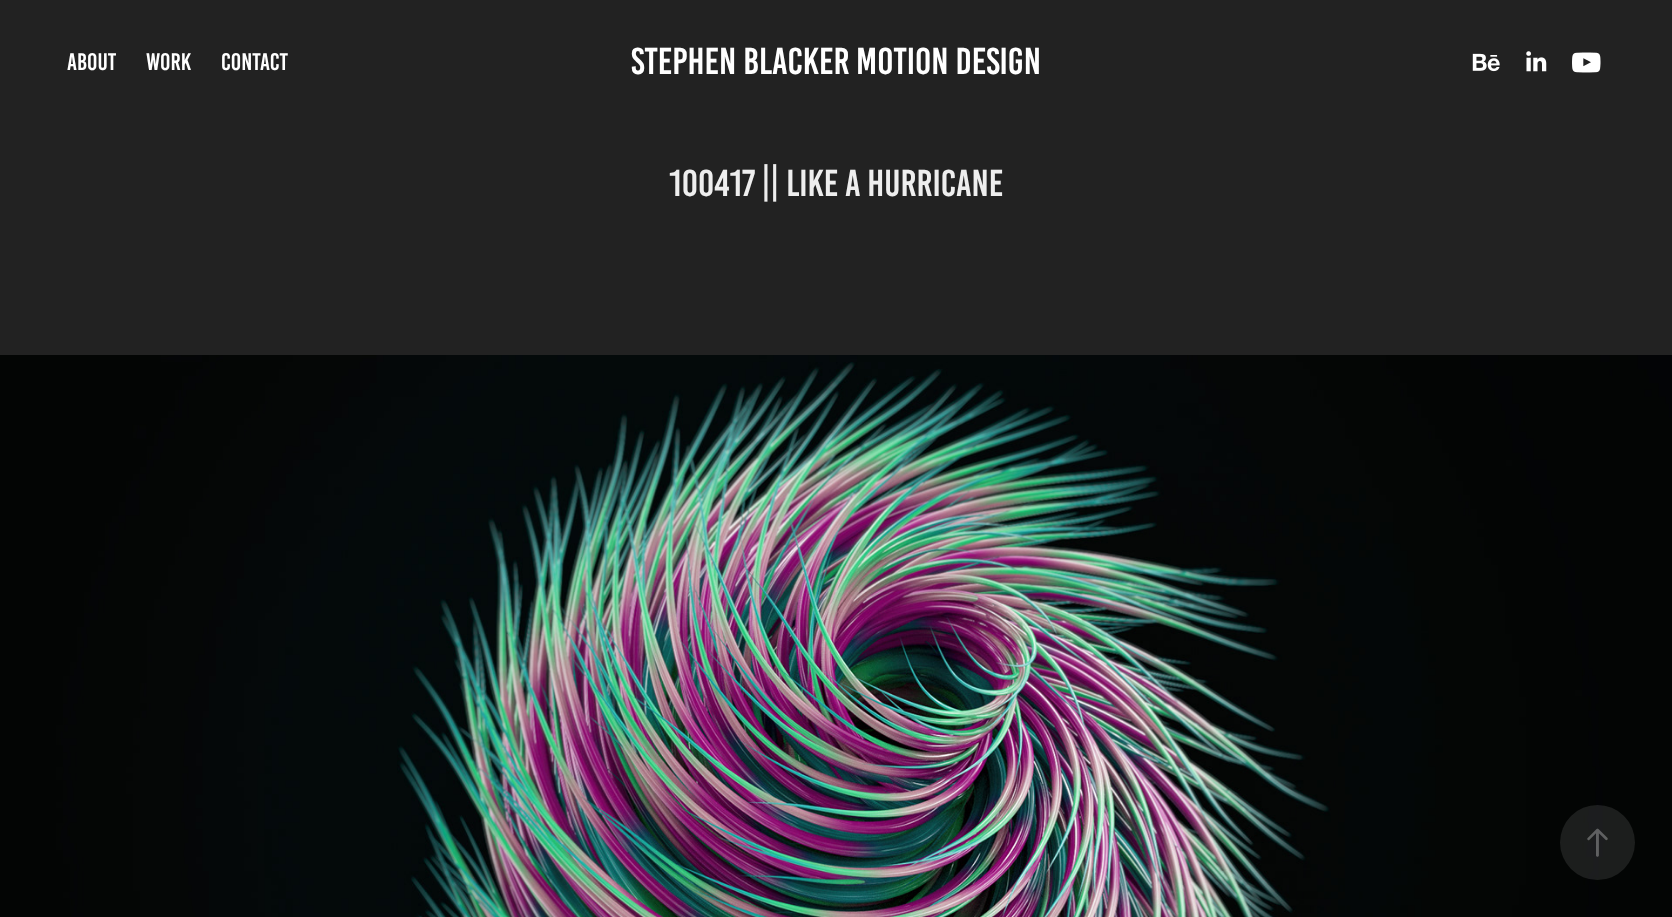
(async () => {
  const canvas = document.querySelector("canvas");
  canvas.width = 1672;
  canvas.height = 917;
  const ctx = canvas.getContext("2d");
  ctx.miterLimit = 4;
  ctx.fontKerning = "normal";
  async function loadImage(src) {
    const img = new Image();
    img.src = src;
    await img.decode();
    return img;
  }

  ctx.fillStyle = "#222222";
  ctx.fillRect(0, 0, 1672, 917);
  ctx.drawImage(await loadImage("img/1.png"), 1472, 53, 28, 19);
  ctx.drawImage(await loadImage("img/2.png"), 1526, 51, 21, 21);
  ctx.drawImage(await loadImage("img/3.png"), 1572, 52, 29, 21);
  ctx.drawImage(await loadImage("img/4.png"), 0, 355, 1672, 562);
  ctx.fillStyle = "rgba(255, 255, 255, 0.1)";
  ctx.beginPath();
  ctx.arc(1597.5, 842.5, 37.5, 0, Math.PI * 2);
  ctx.fill();
  ctx.drawImage(await loadImage("img/5.png"), 1587, 828, 21, 29);
  ctx.font = "24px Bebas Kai";
  ctx.fillStyle = "#ffffff";
  for (const [text, x, y] of [
    ["ABOUT", 67, 70],
    ["WORK", 146, 70],
    ["CONTACT", 221, 70],
  ]) {
    ctx.fillText(text, x, y);
  }
  ctx.font = "37.5px Bebas Kai";
  ctx.fillText("STEPHEN BLACKER MOTION DESIGN", 631, 74);
  ctx.fillStyle = "#eeeeee";
  ctx.fillText("100417 || Like A Hurricane", 669, 196);
})();
